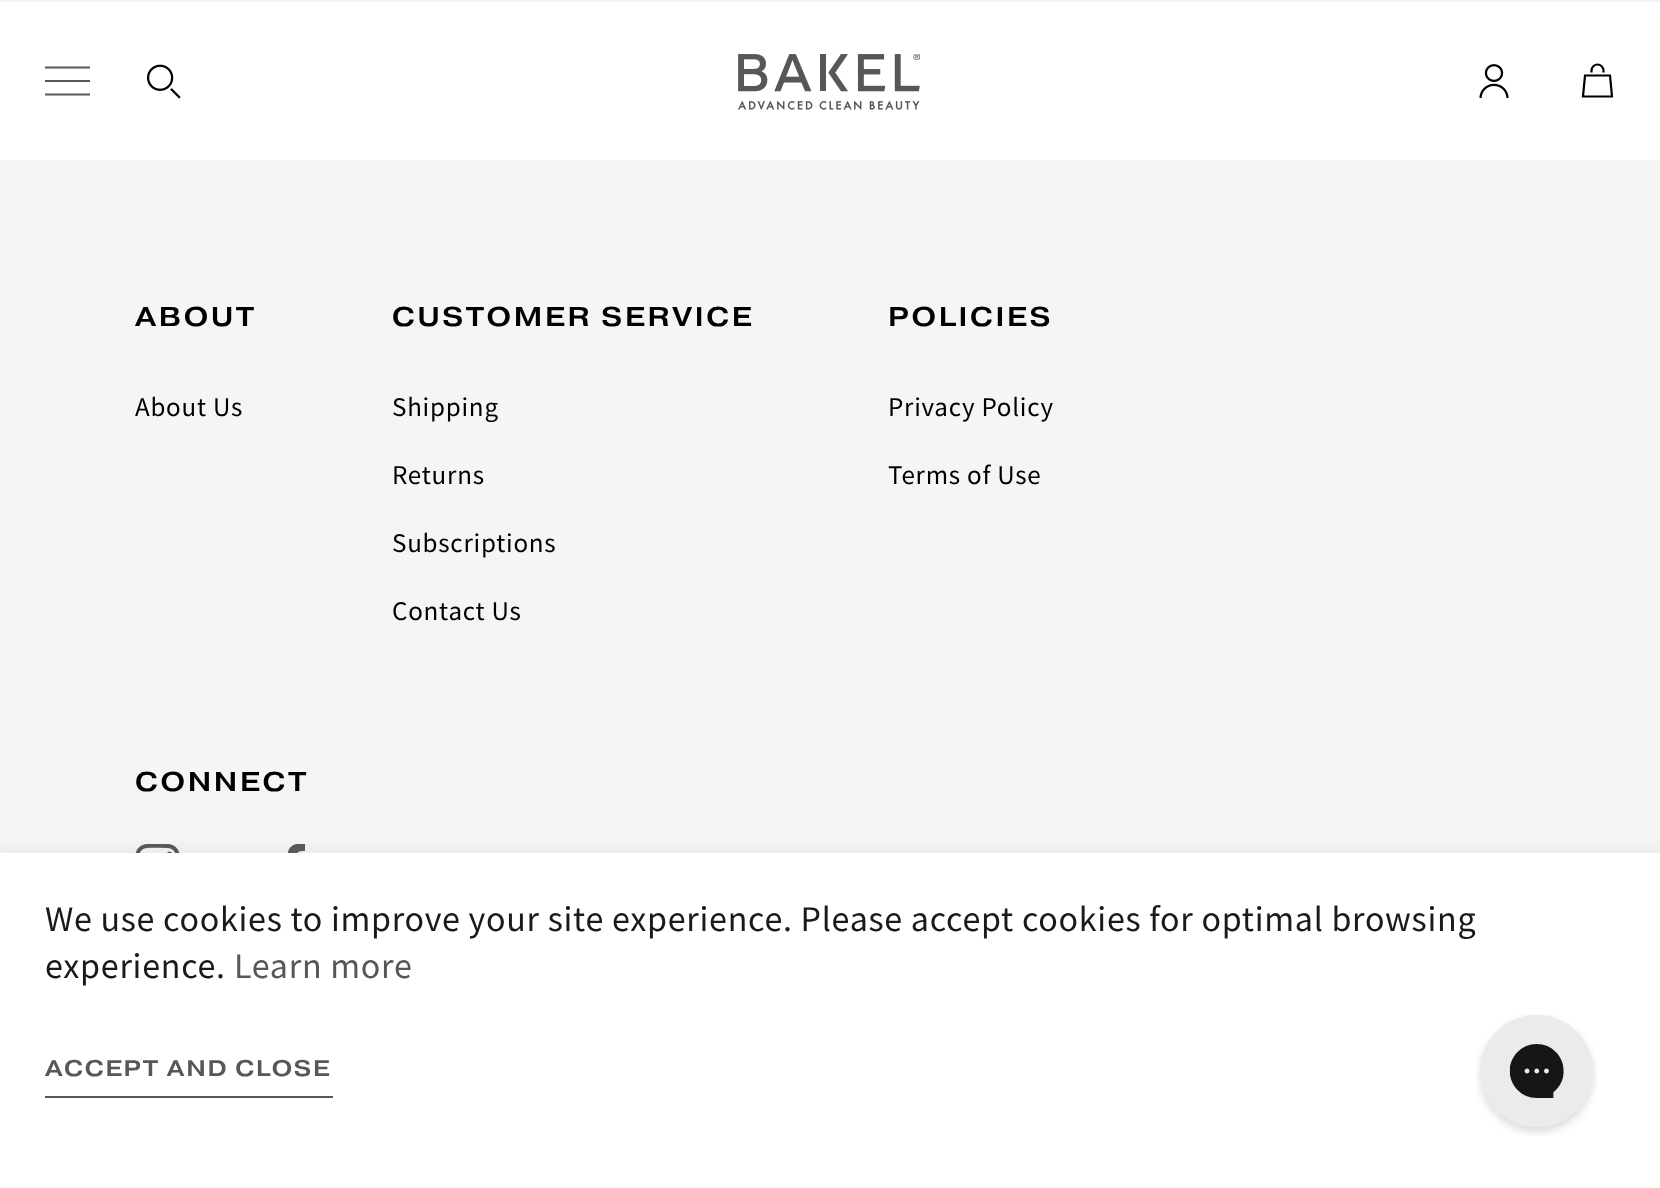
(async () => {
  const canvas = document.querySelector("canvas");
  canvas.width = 1660;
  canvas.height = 1188;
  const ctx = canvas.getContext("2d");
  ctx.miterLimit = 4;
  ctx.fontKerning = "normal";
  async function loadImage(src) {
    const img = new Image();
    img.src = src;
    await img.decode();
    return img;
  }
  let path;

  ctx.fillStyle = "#f5f5f5";
  ctx.fillRect(0, 0, 1660, 1188);
  ctx.fillStyle = "#ffffff";
  ctx.fillRect(0, 2, 1660, 158);
  ctx.fillStyle = "#f2f3f4";
  ctx.fillRect(0, 0, 1660, 2);
  path = new Path2D("M45 67.5H90");
  ctx.strokeStyle = "#555858";
  ctx.lineWidth = 2.2;
  ctx.stroke(path);
  ctx.fillStyle = "#555858";
  ctx.fillRect(45, 80, 45, 2);
  path = new Path2D("M45 94.5H90");
  ctx.stroke(path);
  ctx.drawImage(await loadImage("img/1.png"), 146, 64, 35, 35);
  ctx.drawImage(await loadImage("img/2.png"), 738, 54, 182, 56);
  ctx.drawImage(await loadImage("img/3.png"), 1479, 64, 30, 34);
  path = new Path2D("M1603.5 72.5V70.5C1603.5 67 1600.5 64.5 1597.5 64.5C1594.5 64.5 1591.5 67 1591.5 70.5V72.5M1585 75.5H1610L1612 96.5H1583Z");
  ctx.strokeStyle = "#000000";
  ctx.stroke(path);
  ctx.drawImage(await loadImage("img/4.png"), 135, 844, 45, 9);
  ctx.save();
  ctx.beginPath();
  ctx.rect(270, 844, 45, 45);
  ctx.clip();
  path = new Path2D("M288 868V889H297V868H304L305 860H297C297 852 296 851 305 851V844C298 843 290 844 288 852V860H281V868Z");
  ctx.fill(path);
  ctx.restore();
  ctx.fillStyle = "rgba(123, 134, 140, 0.1)";
  ctx.filter = "blur(7px)";
  ctx.beginPath();
  ctx.rect(0, 848, 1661, 336);
  ctx.fill();
  ctx.filter = "none";
  ctx.fillStyle = "#ffffff";
  ctx.fillRect(0, 853, 1660, 335);
  ctx.fillStyle = "#555858";
  ctx.fillRect(45, 1096, 288, 2);
  ctx.drawImage(await loadImage("img/5.png"), 1476, 1014, 121, 122);
  ctx.letterSpacing = "2.75px";
  ctx.font = "500 27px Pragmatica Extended";
  ctx.fillStyle = "#000000";
  ctx.fillText("ABOUT", 135, 326);
  ctx.letterSpacing = "0.75px";
  ctx.font = "27px Source Sans Pro";
  ctx.fillText("About Us", 135, 416);
  ctx.letterSpacing = "2.75px";
  ctx.font = "500 27px Pragmatica Extended";
  ctx.fillText("CUSTOMER SERVICE", 392, 326);
  ctx.letterSpacing = "0.75px";
  ctx.font = "27px Source Sans Pro";
  for (const [text, x, y] of [
    ["Shipping", 392, 416],
    ["Returns", 392, 484],
    ["Subscriptions", 392, 552],
    ["Contact Us", 392, 620],
  ]) {
    ctx.fillText(text, x, y);
  }
  ctx.letterSpacing = "2.75px";
  ctx.font = "500 27px Pragmatica Extended";
  ctx.fillText("POLICIES", 888, 326);
  ctx.letterSpacing = "0.75px";
  ctx.font = "27px Source Sans Pro";
  ctx.fillText("Privacy Policy", 888, 416);
  ctx.fillText("Terms of Use", 888, 484);
  ctx.letterSpacing = "2.75px";
  ctx.font = "500 27px Pragmatica Extended";
  ctx.fillText("CONNECT", 135, 791);
  ctx.letterSpacing = "0.72px";
  ctx.font = "36px Source Sans Pro";
  ctx.fillStyle = "#1a1a1a";
  ctx.fillText("We use cookies to improve your site experience. Please accept cookies for optimal browsing", 45, 931);
  ctx.fillText("experience.", 45, 978);
  ctx.fillStyle = "#555858";
  ctx.fillText("Learn more", 234, 978);
  ctx.letterSpacing = "1.75px";
  ctx.font = "500 22.5px Pragmatica Extended";
  ctx.fillText("ACCEPT AND CLOSE", 45, 1076);
})();
